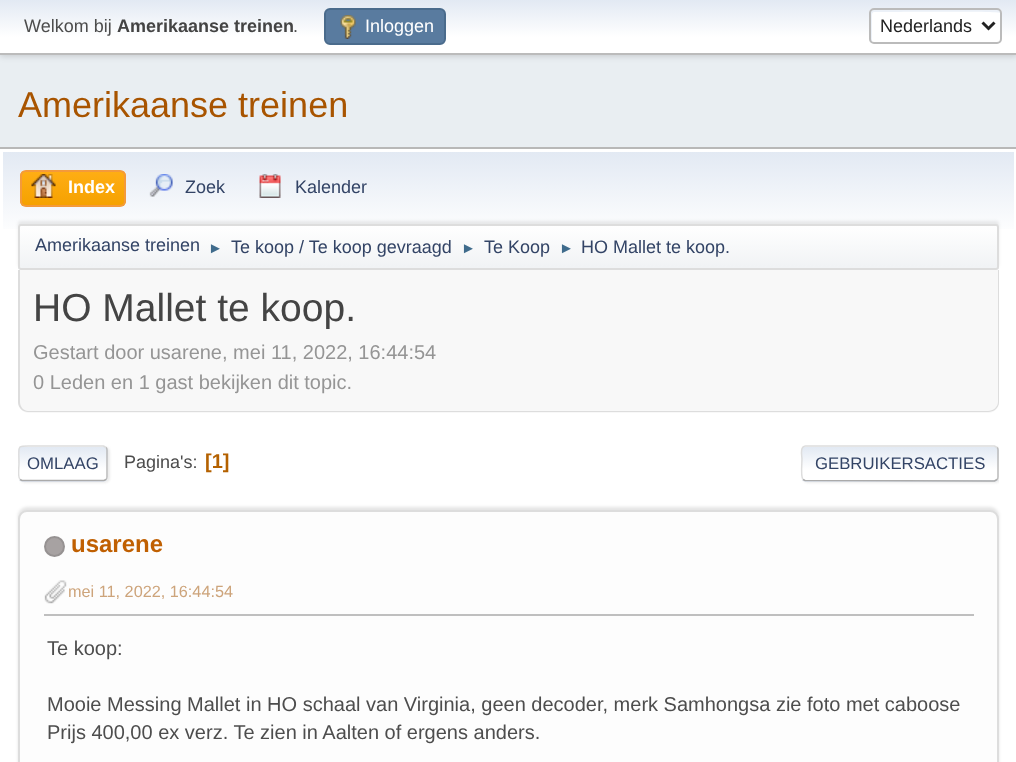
(async () => {
  const canvas = document.querySelector("canvas");
  canvas.width = 1016;
  canvas.height = 762;
  const ctx = canvas.getContext("2d");
  ctx.miterLimit = 4;
  ctx.fontKerning = "normal";
  async function loadImage(src) {
    const img = new Image();
    img.src = src;
    await img.decode();
    return img;
  }
  let gradient, path;

  ctx.fillStyle = "#e9eef2";
  ctx.fillRect(0, 0, 1016, 762);
  ctx.fillStyle = "rgba(0, 0, 0, 0.16)";
  ctx.filter = "blur(3px)";
  ctx.beginPath();
  ctx.rect(0, 2, 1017, 54);
  ctx.fill();
  ctx.filter = "none";
  gradient = ctx.createLinearGradient(509, 0, 509, 53);
  gradient.addColorStop(0, "#e2e9f3");
  gradient.addColorStop(0.7, "#ffffff");
  ctx.fillStyle = gradient;
  ctx.fillRect(0, 0, 1016, 53);
  ctx.fillStyle = "#bbbbbb";
  ctx.fillRect(0, 53, 1016, 2);
  ctx.fillStyle = "#597b9f";
  ctx.beginPath();
  ctx.roundRect(325, 9, 120, 35, 5);
  ctx.fill();
  ctx.strokeStyle = "#4a6b8c";
  ctx.lineWidth = 2;
  ctx.stroke();
  ctx.drawImage(await loadImage("img/1.png"), 340, 15, 16, 24);
  ctx.fillStyle = "#ffffff";
  ctx.beginPath();
  ctx.roundRect(869, 8, 133, 36, 5);
  ctx.fill();
  ctx.fillStyle = "#ecf1f8";
  path = new Path2D("M874 12C887 12 999 11 1001 13V12C1001 10 1000 9 998 9H873C871 9 870 10 870 12V39C870 40 871 41 872 42V15C872 13 873 12 874 12Z");
  ctx.fill(path);
  ctx.beginPath();
  ctx.roundRect(870, 9, 131, 34, 4);
  ctx.strokeStyle = "#bbbbbb";
  ctx.stroke();
  path = new Path2D("M982.5 22.5L988.5 28.5L994.5 22.5");
  ctx.strokeStyle = "#222222";
  ctx.lineWidth = 3;
  ctx.stroke(path);
  ctx.fillStyle = "#ffffff";
  ctx.fillRect(0, 149, 1016, 613);
  ctx.fillStyle = "#b8b8b8";
  ctx.fillRect(0, 147, 1016, 2);
  gradient = ctx.createLinearGradient(509, 151, 509, 273);
  gradient.addColorStop(0, "#e2e9f3");
  gradient.addColorStop(0.7, "#ffffff");
  ctx.fillStyle = gradient;
  ctx.fillRect(3, 152, 1011, 77);
  ctx.save();
  ctx.beginPath();
  ctx.roundRect(20, 170, 106, 37, 6);
  ctx.clip();
  gradient = ctx.createLinearGradient(73, 171, 73, 206);
  gradient.addColorStop(0, "#ffae14");
  gradient.addColorStop(1, "#f5a100");
  ctx.fillStyle = gradient;
  ctx.fillRect(20, 171, 106, 35);
  ctx.restore();
  ctx.beginPath();
  ctx.roundRect(21, 171, 104, 35, 5);
  ctx.strokeStyle = "#f49a3a";
  ctx.lineWidth = 2;
  ctx.stroke();
  ctx.drawImage(await loadImage("img/2.png"), 31, 174, 25, 24);
  ctx.drawImage(await loadImage("img/3.png"), 149, 174, 24, 23);
  ctx.drawImage(await loadImage("img/4.png"), 259, 174, 22, 24);
  ctx.fillStyle = "rgba(0, 0, 0, 0.08)";
  ctx.filter = "blur(1.5px)";
  ctx.beginPath();
  ctx.roundRect(18, 221, 981, 46, 3);
  ctx.fill();
  ctx.filter = "none";
  ctx.save();
  ctx.beginPath();
  ctx.roundRect(18, 224, 981, 46, 3);
  ctx.clip();
  gradient = ctx.createLinearGradient(509, 225, 509, 269);
  gradient.addColorStop(0, "#ffffff");
  gradient.addColorStop(0.95, "#f1f3f5");
  ctx.fillStyle = gradient;
  ctx.fillRect(18, 225, 981, 44);
  ctx.restore();
  ctx.beginPath();
  ctx.roundRect(19, 225, 979, 44, 2);
  ctx.strokeStyle = "#dddddd";
  ctx.stroke();
  ctx.fillStyle = "#f8f8f8";
  ctx.beginPath();
  ctx.roundRect(18, 270, 981, 143, [0, 0, 11, 11]);
  ctx.fill();
  ctx.fillStyle = "#dddddd";
  path = new Path2D("M18 270H999V402C999 408 994 412 988 412H28C23 412 18 408 18 402ZM20 270H998V402C998 407 993 411 988 411H28C24 411 20 407 20 402Z");
  ctx.fill(path, "evenodd");
  ctx.fillStyle = "rgba(221, 221, 221, 0.57)";
  ctx.filter = "blur(1px)";
  ctx.beginPath();
  ctx.roundRect(20, 447, 90, 36, 5);
  ctx.fill();
  ctx.filter = "none";
  ctx.fillStyle = "#ffffff";
  ctx.beginPath();
  ctx.roundRect(18, 446, 90, 36, 5);
  ctx.fill();
  ctx.save();
  ctx.beginPath();
  ctx.roundRect(18, 446, 90, 36, 5);
  ctx.clip();
  gradient = ctx.createLinearGradient(63, 447, 63, 480);
  gradient.addColorStop(0, "#e2e9f3");
  gradient.addColorStop(0.7, "#ffffff");
  ctx.fillStyle = gradient;
  ctx.fillRect(18, 447, 90, 33);
  gradient = ctx.createLinearGradient(63, 480, 63, 513);
  gradient.addColorStop(0, "#e2e9f3");
  gradient.addColorStop(0.7, "#ffffff");
  ctx.fillStyle = gradient;
  ctx.fillRect(18, 480, 90, 2);
  ctx.restore();
  path = new Path2D("M106 447.5C107 448 107 449 107 450V477C107 478 107 479 106 479.5");
  ctx.strokeStyle = "#bbbbbb";
  ctx.lineWidth = 1.5;
  ctx.stroke(path);
  path = new Path2D("M106 479.5L104 480.5H22L20 479.5");
  ctx.strokeStyle = "#aaaaaa";
  ctx.stroke(path);
  ctx.save();
  ctx.beginPath();
  ctx.rect(18, 435, 981, 57);
  ctx.clip();
  path = new Path2D("M20 479.5C17.5 477.5 19 466.5 19 463.5C19 443.5 15.5 446 36 446H103.5L106 447.5");
  ctx.strokeStyle = "#dddddd";
  ctx.stroke(path);
  ctx.restore();
  ctx.save();
  ctx.beginPath();
  ctx.rect(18, 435, 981, 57);
  ctx.clip();
  ctx.fillStyle = "rgba(221, 221, 221, 0.57)";
  ctx.filter = "blur(1px)";
  ctx.beginPath();
  ctx.roundRect(803, 447, 198, 36, 5);
  ctx.fill();
  ctx.filter = "none";
  ctx.restore();
  ctx.save();
  ctx.beginPath();
  ctx.roundRect(801, 446, 198, 36, 5);
  ctx.clip();
  gradient = ctx.createLinearGradient(900, 447, 900, 480);
  gradient.addColorStop(0, "#e2e9f3");
  gradient.addColorStop(0.7, "#ffffff");
  ctx.fillStyle = gradient;
  ctx.fillRect(801, 447, 198, 33);
  gradient = ctx.createLinearGradient(900, 480, 900, 513);
  gradient.addColorStop(0, "#e2e9f3");
  gradient.addColorStop(0.7, "#ffffff");
  ctx.fillStyle = gradient;
  ctx.fillRect(801, 480, 198, 2);
  ctx.restore();
  path = new Path2D("M997 447.5C998 448 998 449 998 450V477C998 478 998 479 997 479.5");
  ctx.strokeStyle = "#bbbbbb";
  ctx.stroke(path);
  path = new Path2D("M997 479.5L994.5 481L805 480.5L803 479.5");
  ctx.strokeStyle = "#aaaaaa";
  ctx.stroke(path);
  path = new Path2D("M803 479.5C800.5 477 802 462.5 802 459C802 456 799.5 446.5 805.5 446H994.5L997 447.5");
  ctx.strokeStyle = "#dddddd";
  ctx.stroke(path);
  ctx.fillStyle = "rgba(0, 0, 0, 0.1)";
  ctx.filter = "blur(1.5px)";
  ctx.beginPath();
  ctx.roundRect(18, 507, 981, 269, 9);
  ctx.fill();
  ctx.filter = "none";
  ctx.fillStyle = "#fdfdfd";
  ctx.beginPath();
  ctx.roundRect(19, 511, 979, 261, 8);
  ctx.fill();
  ctx.lineWidth = 2;
  ctx.stroke();
  ctx.fillStyle = "#a7a2a2";
  ctx.beginPath();
  ctx.arc(54.5, 546.5, 9.5, 0, Math.PI * 2);
  ctx.fill();
  ctx.strokeStyle = "#969292";
  ctx.stroke();
  ctx.drawImage(await loadImage("img/5.png"), 44, 580, 23, 24);
  ctx.fillStyle = "#bfbfbf";
  ctx.fillRect(44, 614, 930, 2);
  ctx.font = "18px Liberation Sans";
  ctx.fillStyle = "#4d4d4d";
  ctx.fillText("Welkom bij", 24, 32);
  ctx.font = "bold 18px Liberation Sans";
  ctx.fillStyle = "#444444";
  ctx.fillText("Amerikaanse treinen", 117, 32);
  ctx.font = "18px Liberation Sans";
  ctx.fillStyle = "#4d4d4d";
  ctx.fillText(".", 293, 32);
  ctx.fillStyle = "#ffffff";
  ctx.fillText("Inloggen", 365, 32);
  ctx.fillStyle = "#222222";
  ctx.fillText("Nederlands", 880, 32);
  ctx.font = "36px Liberation Sans";
  ctx.fillStyle = "#a85400";
  ctx.fillText("Amerikaanse treinen", 18, 117);
  ctx.font = "bold 18px Liberation Sans";
  ctx.fillStyle = "#ffffff";
  ctx.fillText("Index", 68, 193);
  ctx.font = "18px Liberation Sans";
  ctx.fillStyle = "#334466";
  for (const [text, x, y] of [
    ["Zoek", 185, 193],
    ["Kalender", 295, 193],
    ["Amerikaanse treinen", 35, 251],
  ]) {
    ctx.fillText(text, x, y);
  }
  ctx.font = "15px Liberation Sans";
  ctx.fillStyle = "#3f6b8c";
  ctx.fillText("►", 208, 253);
  ctx.font = "18px Liberation Sans";
  ctx.fillStyle = "#334466";
  ctx.fillText("Te koop / Te koop gevraagd", 231, 253);
  ctx.font = "15px Liberation Sans";
  ctx.fillStyle = "#3f6b8c";
  ctx.fillText("►", 461, 253);
  ctx.font = "18px Liberation Sans";
  ctx.fillStyle = "#334466";
  ctx.fillText("Te Koop", 484, 253);
  ctx.font = "15px Liberation Sans";
  ctx.fillStyle = "#3f6b8c";
  ctx.fillText("►", 559, 253);
  ctx.font = "18px Liberation Sans";
  ctx.fillStyle = "#334466";
  ctx.fillText("HO Mallet te koop.", 581, 253);
  ctx.font = "39px Liberation Sans";
  ctx.fillStyle = "#444444";
  ctx.fillText("HO Mallet te koop.", 33, 321);
  ctx.font = "20px Liberation Sans";
  ctx.fillStyle = "#959595";
  ctx.fillText("Gestart door usarene, mei 11, 2022, 16:44:54", 33, 359);
  ctx.fillText("0 Leden en 1 gast bekijken dit topic.", 33, 389);
  ctx.font = "16.75px Liberation Sans";
  ctx.fillStyle = "#334466";
  ctx.fillText("OMLAAG", 27, 469);
  ctx.font = "18px Liberation Sans";
  ctx.fillStyle = "#4d4d4d";
  ctx.fillText("Pagina's:", 124, 468);
  ctx.font = "bold 20px Liberation Sans";
  ctx.fillStyle = "#b46100";
  ctx.fillText("[1]", 205, 468);
  ctx.font = "16.75px Liberation Sans";
  ctx.fillStyle = "#334466";
  ctx.fillText("GEBRUIKERSACTIES", 815, 469);
  ctx.font = "bold 24px Liberation Sans";
  ctx.fillStyle = "#c06002";
  ctx.fillText("usarene", 71, 552);
  ctx.font = "16.25px Liberation Sans";
  ctx.fillStyle = "#cda47b";
  ctx.fillText("mei 11, 2022, 16:44:54", 68, 597);
  ctx.font = "20px Liberation Sans";
  ctx.fillStyle = "#4d4d4d";
  for (const [text, x, y] of [
    ["Te koop:", 47, 655],
    ["Mooie Messing Mallet in HO schaal van Virginia, geen decoder, merk Samhongsa zie foto met caboose", 47, 711],
    ["Prijs 400,00 ex verz. Te zien in Aalten of ergens anders.", 47, 739],
  ]) {
    ctx.fillText(text, x, y);
  }
})();
